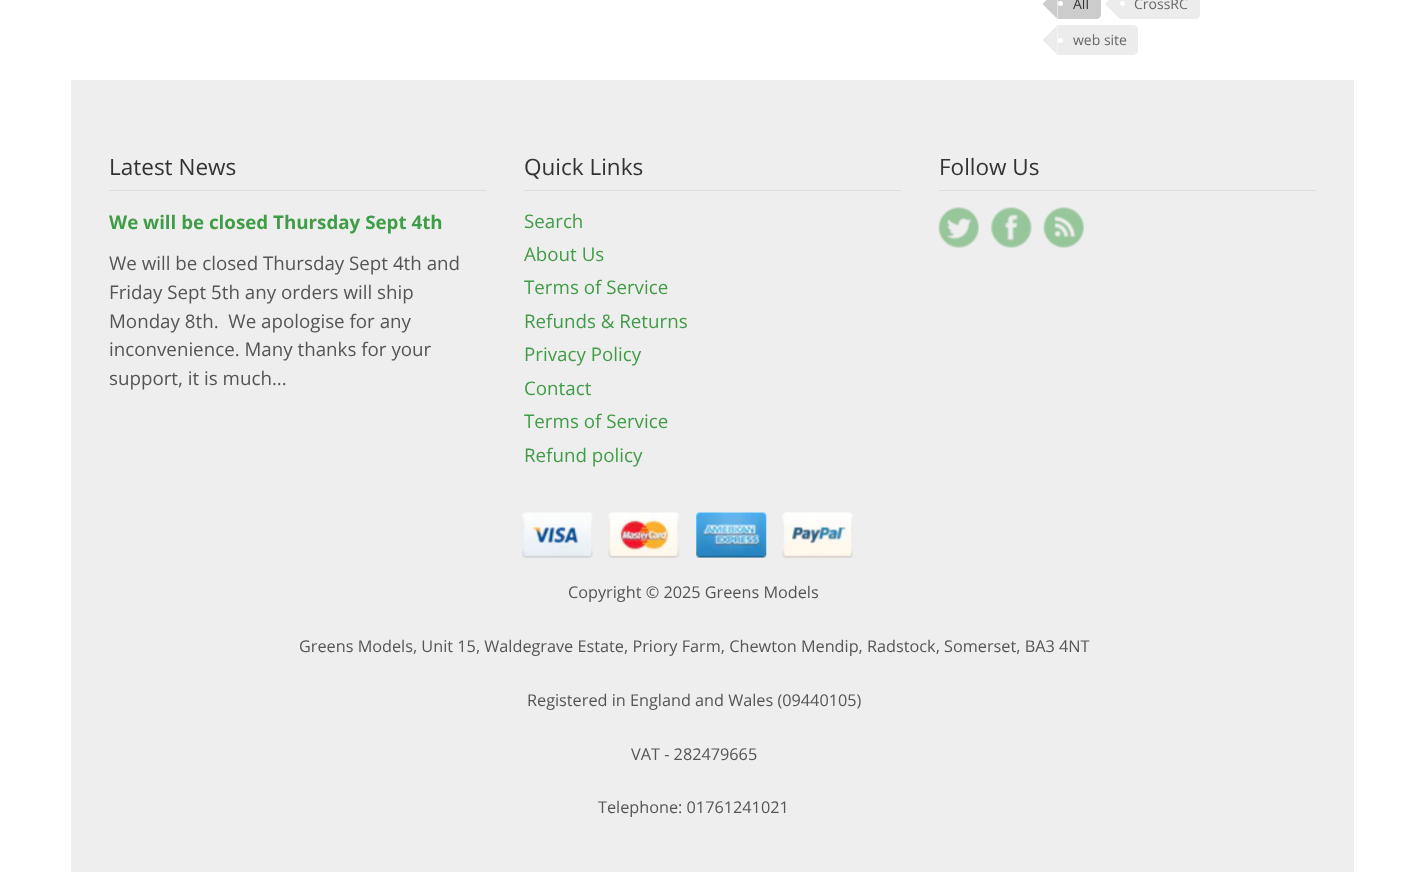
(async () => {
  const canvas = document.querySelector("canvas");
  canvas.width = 1425;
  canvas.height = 872;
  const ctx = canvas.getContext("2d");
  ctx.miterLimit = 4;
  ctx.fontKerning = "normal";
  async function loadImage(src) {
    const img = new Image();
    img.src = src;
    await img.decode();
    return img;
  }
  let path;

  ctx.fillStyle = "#ffffff";
  ctx.fillRect(0, 0, 1425, 872);
  ctx.fillStyle = "#cccccc";
  path = new Path2D("M1058-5H1096C1099-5 1101-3 1101 0V14C1101 17 1099 19 1096 19H1058Z");
  ctx.fill(path);
  path = new Path2D("M1057.5-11V19L1042.5 4Z");
  ctx.fill(path);
  ctx.fillStyle = "#ffffff";
  ctx.beginPath();
  ctx.arc(1060.5, 3.5, 2.5, 0, Math.PI * 2);
  ctx.fill();
  ctx.fillStyle = "#ececec";
  path = new Path2D("M1120-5H1195C1198-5 1200-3 1200 0V14C1200 17 1198 19 1195 19H1120Z");
  ctx.fill(path);
  path = new Path2D("M1120-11V19L1105 4Z");
  ctx.fill(path);
  ctx.fillStyle = "#ffffff";
  ctx.beginPath();
  ctx.arc(1122.5, 3.5, 2.5, 0, Math.PI * 2);
  ctx.fill();
  ctx.fillStyle = "#ececec";
  ctx.beginPath();
  ctx.roundRect(1058, 25, 80, 30, [0, 5, 5, 0]);
  ctx.fill();
  path = new Path2D("M1057.5 25V55L1042.5 40Z");
  ctx.fill(path);
  ctx.fillStyle = "#ffffff";
  ctx.beginPath();
  ctx.arc(1060.5, 40.5, 2.5, 0, Math.PI * 2);
  ctx.fill();
  for (const [x, y, w, h, color] of [
    [71, 80, 1283, 792, "#eeeeee"],
    [109, 190, 377, 1, "#dddddd"],
    [524, 190, 377, 1, "#dddddd"],
    [939, 190, 377, 1, "#dddddd"],
  ]) {
    ctx.fillStyle = color;
    ctx.fillRect(x, y, w, h);
  }
  ctx.drawImage(await loadImage("img/1.png"), 938, 207, 41, 41);
  ctx.drawImage(await loadImage("img/2.png"), 990, 207, 42, 41);
  ctx.drawImage(await loadImage("img/3.png"), 1043, 207, 41, 41);
  ctx.drawImage(await loadImage("img/4.png"), 522, 512, 71, 46);
  ctx.drawImage(await loadImage("img/5.png"), 608, 512, 72, 46);
  ctx.drawImage(await loadImage("img/6.png"), 696, 512, 71, 46);
  ctx.drawImage(await loadImage("img/7.png"), 782, 512, 71, 46);
  ctx.font = "14px Open Sans";
  ctx.fillStyle = "#333333";
  ctx.fillText("All", 1073, 9);
  ctx.fillStyle = "#666666";
  ctx.fillText("CrossRC", 1134, 9);
  ctx.fillText("web site", 1073, 45);
  ctx.font = "22.5px Open Sans";
  ctx.fillStyle = "#333333";
  ctx.fillText("Latest News", 109, 175);
  ctx.font = "bold 18.75px Open Sans";
  ctx.fillStyle = "#409d47";
  ctx.fillText("We will be closed Thursday Sept 4th", 109, 229);
  ctx.font = "18.75px Open Sans";
  ctx.fillStyle = "#555555";
  for (const [text, x, y] of [
    ["We will be closed Thursday Sept 4th and", 109, 270],
    ["Friday Sept 5th any orders will ship", 109, 299],
    ["Monday 8th.  We apologise for any", 109, 328],
    ["inconvenience. Many thanks for your", 109, 356],
    ["support, it is much...", 109, 385],
  ]) {
    ctx.fillText(text, x, y);
  }
  ctx.font = "22.5px Open Sans";
  ctx.fillStyle = "#333333";
  ctx.fillText("Quick Links", 524, 175);
  ctx.font = "18.75px Open Sans";
  ctx.fillStyle = "#409d47";
  for (const [text, x, y] of [
    ["Search", 524, 228],
    ["About Us", 524, 261],
    ["Terms of Service", 524, 294],
    ["Refunds & Returns", 524, 328],
    ["Privacy Policy", 524, 361],
    ["Contact", 524, 395],
    ["Terms of Service", 524, 428],
    ["Refund policy", 524, 462],
  ]) {
    ctx.fillText(text, x, y);
  }
  ctx.font = "22.5px Open Sans";
  ctx.fillStyle = "#333333";
  ctx.fillText("Follow Us", 939, 175);
  ctx.font = "16.25px Open Sans";
  ctx.fillStyle = "#555555";
  for (const [text, x, y] of [
    ["Copyright © 2025 Greens Models", 568, 598],
    ["Greens Models, Unit 15, Waldegrave Estate, Priory Farm, Chewton Mendip, Radstock, Somerset, BA3 4NT", 299, 652],
    ["Registered in England and Wales (09440105)", 527, 706],
    ["VAT - 282479665", 631, 760],
    ["Telephone: 01761241021", 598, 813],
  ]) {
    ctx.fillText(text, x, y);
  }
})();
